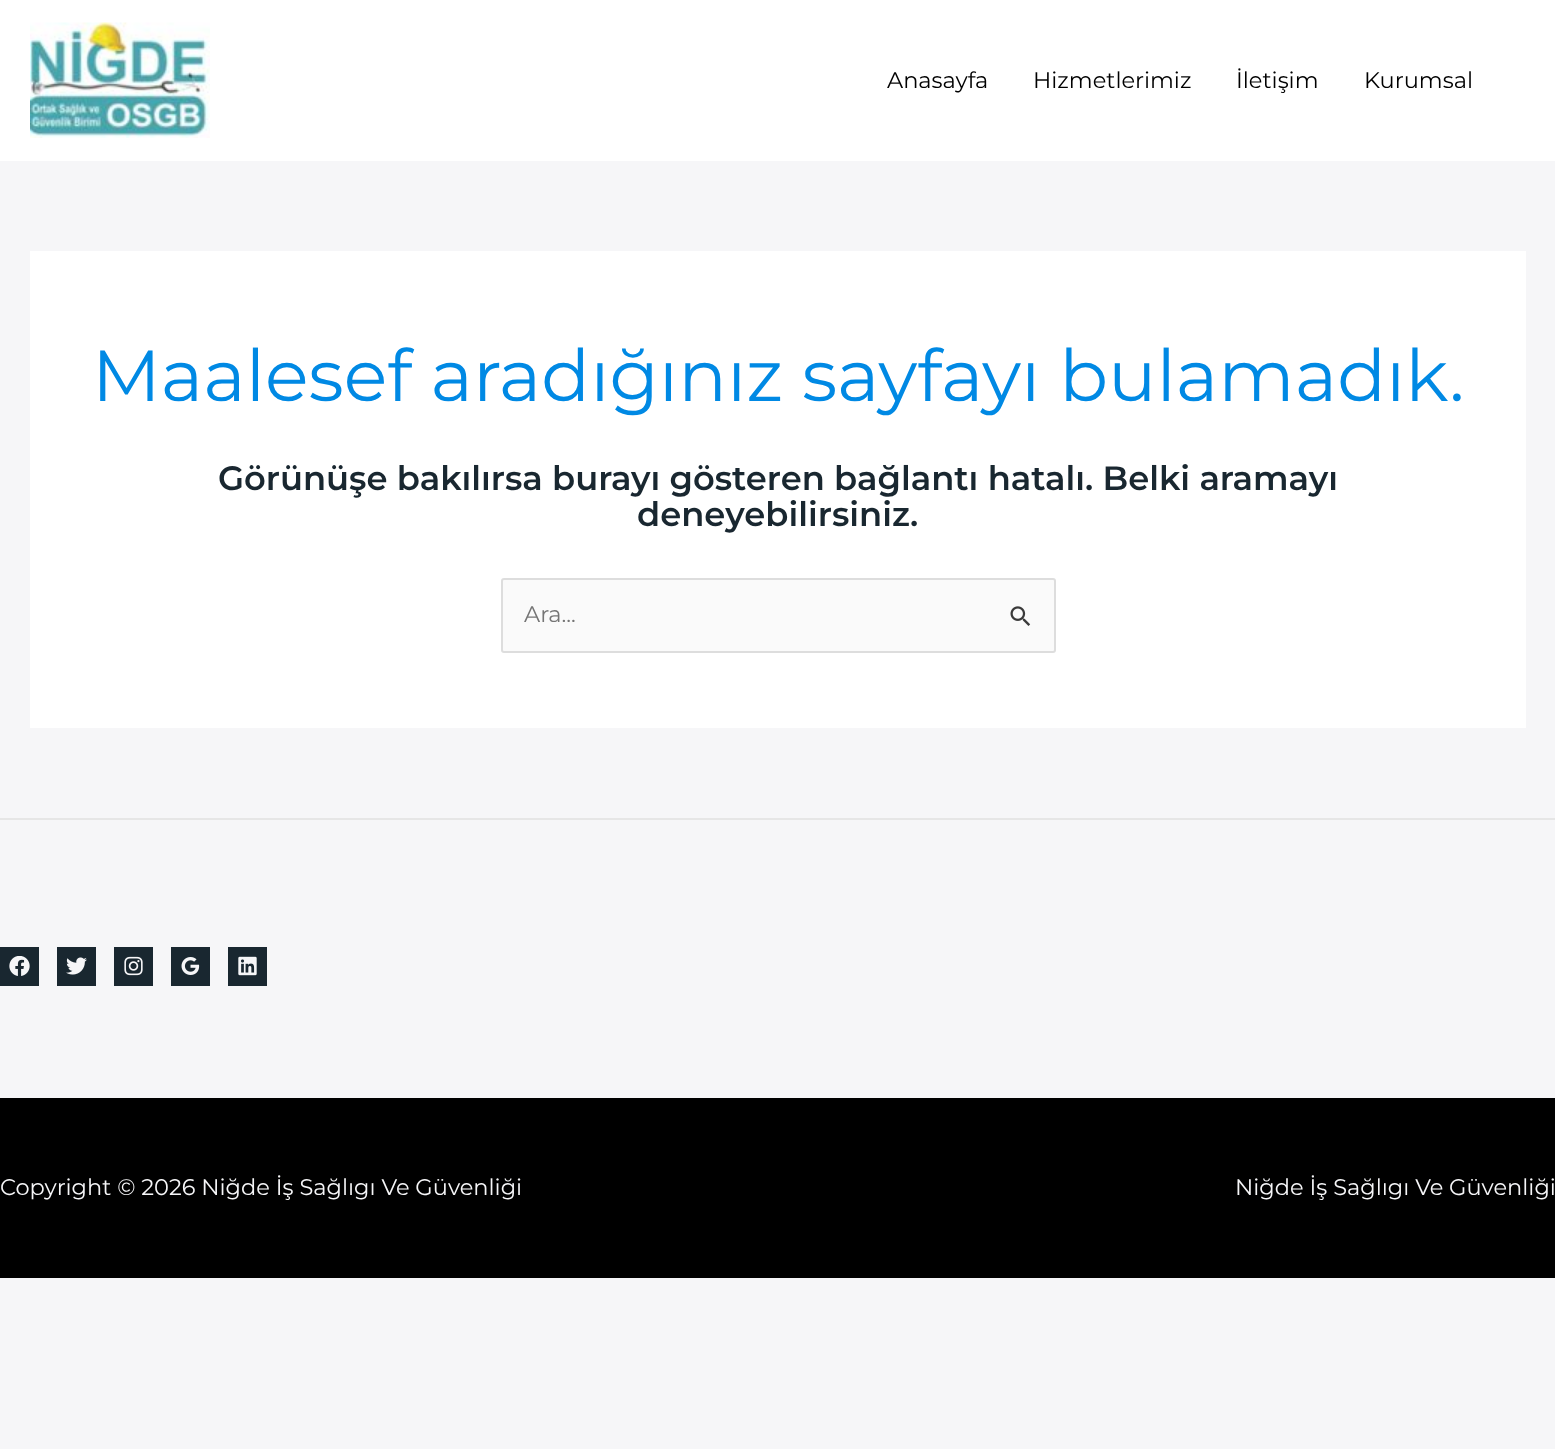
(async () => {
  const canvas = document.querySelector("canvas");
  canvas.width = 1555;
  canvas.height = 1449;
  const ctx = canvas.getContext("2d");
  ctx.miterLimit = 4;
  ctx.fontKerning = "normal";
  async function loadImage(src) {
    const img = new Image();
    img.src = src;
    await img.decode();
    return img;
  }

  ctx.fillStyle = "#f6f6f8";
  ctx.fillRect(0, 0, 1555, 1449);
  ctx.fillStyle = "#ffffff";
  ctx.fillRect(0, 0, 1555, 161);
  ctx.drawImage(await loadImage("img/1.png"), 30, 22, 180, 116);
  ctx.fillRect(30, 251, 1496, 477);
  ctx.fillStyle = "#fafafa";
  ctx.beginPath();
  ctx.roundRect(502, 579, 553, 73, 2);
  ctx.fill();
  ctx.strokeStyle = "#dddddd";
  ctx.lineWidth = 2;
  ctx.stroke();
  ctx.drawImage(await loadImage("img/2.png"), 1010, 606, 21, 20);
  ctx.fillStyle = "#e6e6e6";
  ctx.fillRect(0, 818, 1555, 2);
  ctx.fillStyle = "#192730";
  ctx.fillRect(0, 947, 39, 39);
  ctx.drawImage(await loadImage("img/3.png"), 9, 956, 21, 20);
  ctx.fillRect(57, 947, 39, 39);
  ctx.drawImage(await loadImage("img/4.png"), 66, 957, 21, 18);
  ctx.fillRect(114, 947, 39, 39);
  ctx.drawImage(await loadImage("img/5.png"), 124, 956, 19, 20);
  ctx.fillRect(171, 947, 39, 39);
  ctx.drawImage(await loadImage("img/6.png"), 181, 957, 19, 18);
  ctx.fillRect(228, 947, 39, 39);
  ctx.drawImage(await loadImage("img/7.png"), 238, 956, 19, 20);
  ctx.fillStyle = "#000000";
  ctx.fillRect(0, 1098, 1555, 180);
  ctx.font = "22.5px Montserrat";
  for (const [text, x, y] of [
    ["Anasayfa", 887, 88],
    ["Hizmetlerimiz", 1033, 88],
    ["İletişim", 1236, 88],
    ["Kurumsal", 1364, 88],
  ]) {
    ctx.fillText(text, x, y);
  }
  ctx.font = "72px Montserrat";
  ctx.fillStyle = "#0089e4";
  ctx.fillText("Maalesef aradığınız sayfayı bulamadık.", 92, 401);
  ctx.font = "600 33.75px Montserrat";
  ctx.fillStyle = "#192730";
  ctx.fillText("Görünüşe bakılırsa burayı gösteren bağlantı hatalı. Belki aramayı", 218, 490);
  ctx.fillText("deneyebilirsiniz.", 637, 526);
  ctx.font = "22.5px Montserrat";
  ctx.fillStyle = "#757575";
  ctx.fillText("Ara...", 524, 622);
  ctx.fillStyle = "#f6f6f8";
  ctx.fillText("Copyright © 2026 Niğde İş Sağlıgı Ve Güvenliği", 0, 1195);
  ctx.fillText("Niğde İş Sağlıgı Ve Güvenliği", 1235, 1195);
})();
